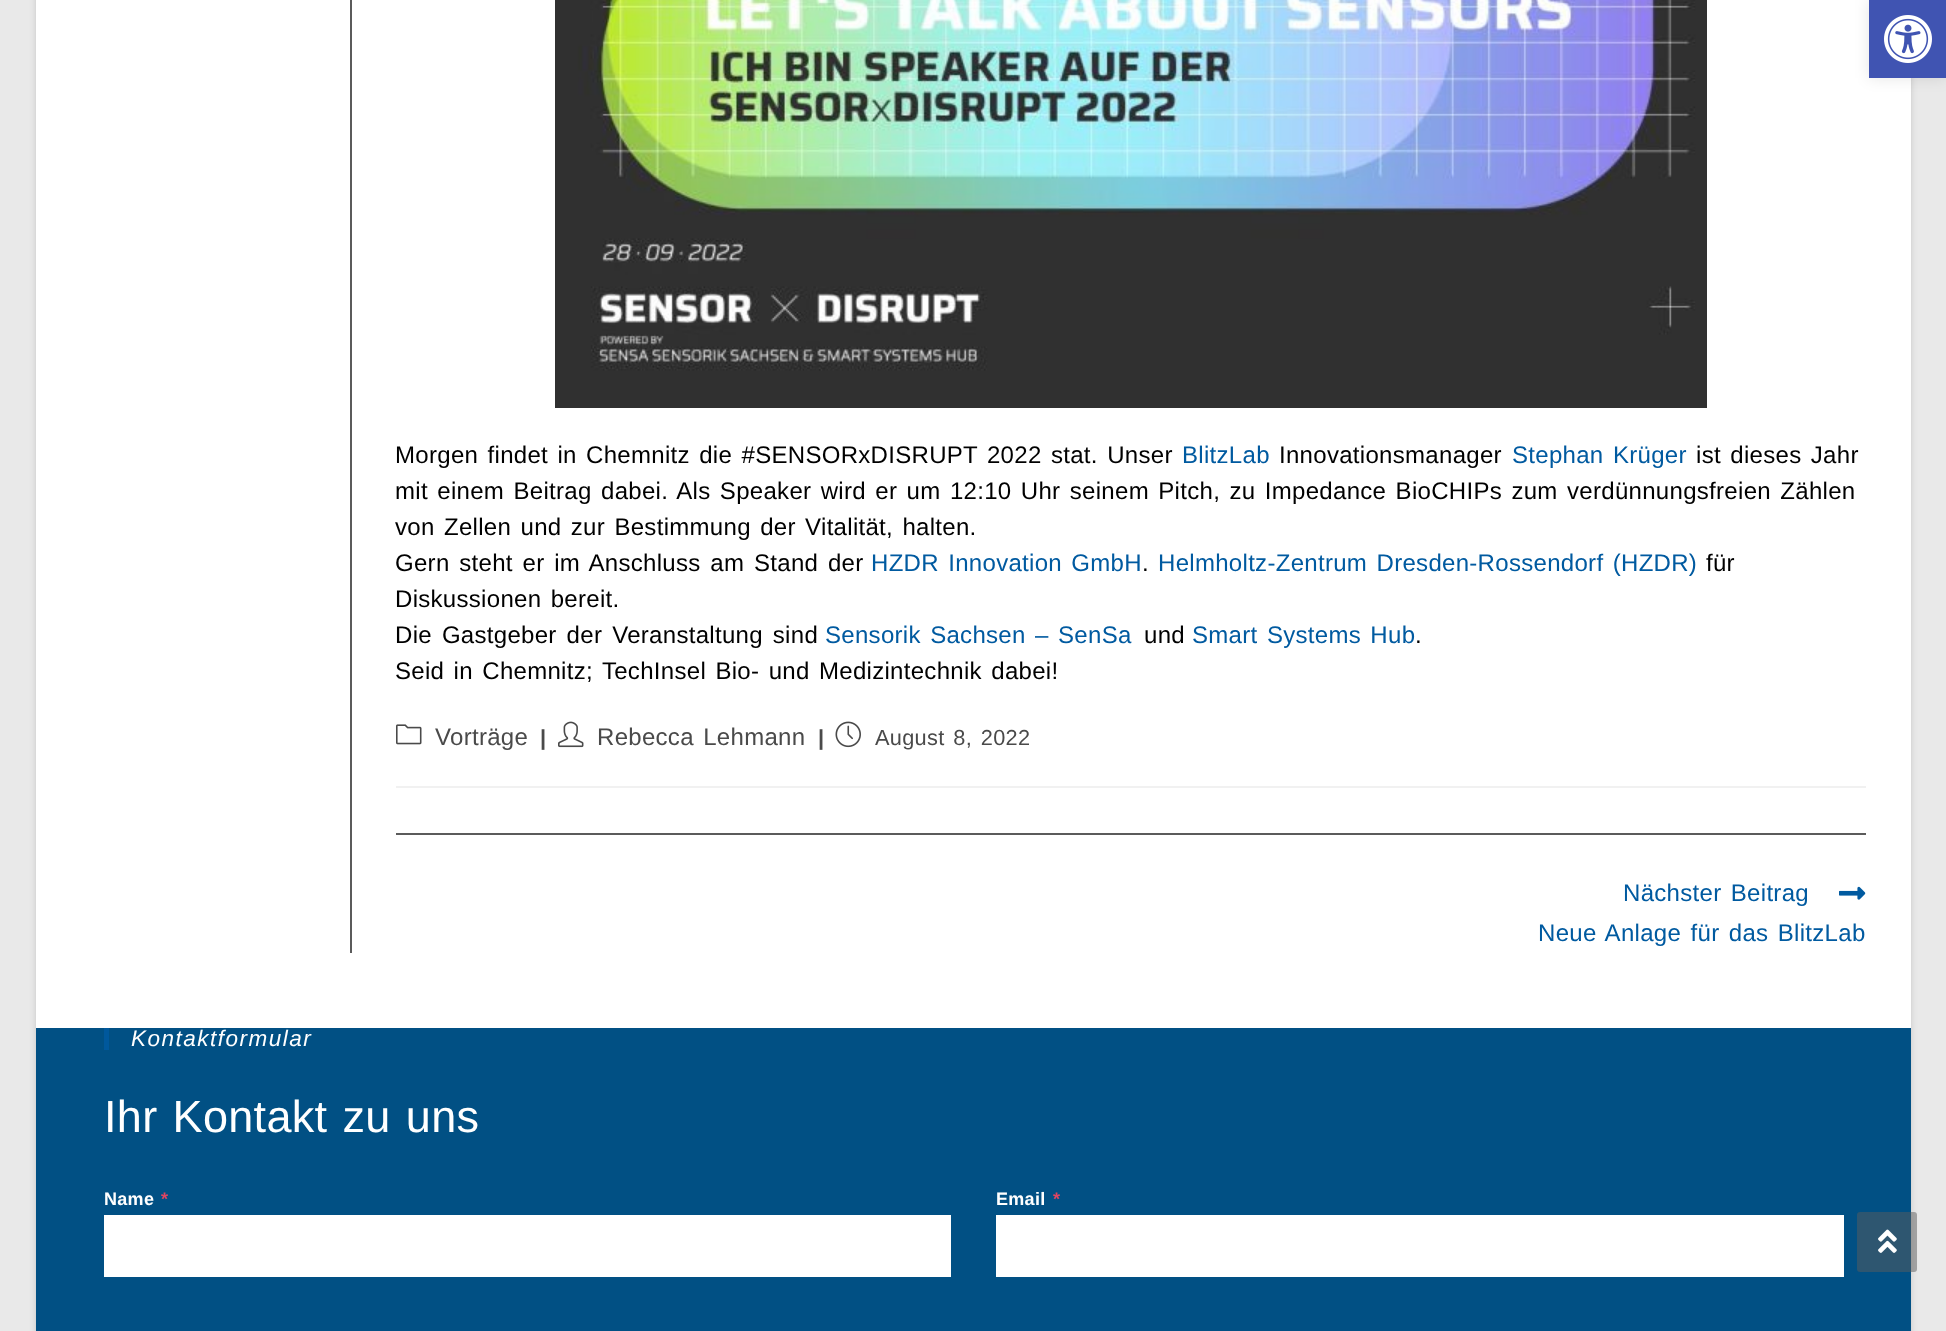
(async () => {
  const canvas = document.querySelector("canvas");
  canvas.width = 1946;
  canvas.height = 1331;
  const ctx = canvas.getContext("2d");
  ctx.miterLimit = 4;
  ctx.fontKerning = "normal";
  async function loadImage(src) {
    const img = new Image();
    img.src = src;
    await img.decode();
    return img;
  }

  ctx.fillStyle = "#e9e9e9";
  ctx.fillRect(0, 0, 1946, 1331);
  ctx.fillStyle = "rgba(0, 0, 0, 0.15)";
  ctx.filter = "blur(3px)";
  ctx.beginPath();
  ctx.rect(36, -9, 1875, 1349);
  ctx.fill();
  ctx.filter = "none";
  ctx.fillStyle = "#ffffff";
  ctx.fillRect(36, 0, 1875, 1028);
  ctx.fillStyle = "rgba(0, 0, 0, 0.1)";
  ctx.filter = "blur(7.5px)";
  ctx.beginPath();
  ctx.rect(1869, 0, 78, 78);
  ctx.fill();
  ctx.filter = "none";
  ctx.fillStyle = "#4054b2";
  ctx.fillRect(1869, 0, 77, 78);
  ctx.drawImage(await loadImage("img/1.png"), 1884, 15, 48, 48);
  ctx.fillStyle = "#5b5b5b";
  ctx.fillRect(350, 0, 2, 953);
  ctx.drawImage(await loadImage("img/2.png"), 555, 0, 1152, 408);
  ctx.fillStyle = "#f1f1f1";
  ctx.fillRect(396, 786, 1470, 2);
  ctx.drawImage(await loadImage("img/3.png"), 396, 724, 26, 21);
  ctx.drawImage(await loadImage("img/4.png"), 558, 721, 26, 27);
  ctx.drawImage(await loadImage("img/5.png"), 835, 721, 26, 27);
  ctx.fillStyle = "#5b5b5b";
  ctx.fillRect(396, 833, 1470, 2);
  ctx.drawImage(await loadImage("img/6.png"), 1839, 886, 27, 14);
  for (const [x, y, w, h, color] of [
    [36, 1028, 1875, 303, "#015084"],
    [104, 1028, 5, 22, "#00589c"],
    [104, 1215, 847, 62, "#ffffff"],
    [996, 1215, 848, 62, "#ffffff"],
  ]) {
    ctx.fillStyle = color;
    ctx.fillRect(x, y, w, h);
  }
  ctx.fillStyle = "rgba(91, 91, 91, 0.5)";
  ctx.beginPath();
  ctx.roundRect(1857, 1212, 60, 60, 3);
  ctx.fill();
  ctx.drawImage(await loadImage("img/7.png"), 1878, 1229, 19, 24);
  ctx.letterSpacing = "0.3px";
  ctx.wordSpacing = "2.4px";
  ctx.font = "24px Liberation Sans";
  ctx.fillStyle = "#000000";
  ctx.fillText("Morgen findet in Chemnitz die #SENSORxDISRUPT 2022 stat. Unser", 395, 463);
  ctx.wordSpacing = "0px";
  ctx.fillStyle = "#005aa0";
  ctx.fillText("BlitzLab", 1182, 463);
  ctx.fillStyle = "#000000";
  ctx.fillText("Innovationsmanager", 1279, 463);
  ctx.wordSpacing = "2.4px";
  ctx.fillStyle = "#005aa0";
  ctx.fillText("Stephan Krüger", 1512, 463);
  ctx.fillStyle = "#000000";
  for (const [text, x, y] of [
    ["ist dieses Jahr", 1696, 463],
    ["mit einem Beitrag dabei. Als Speaker wird er um 12:10 Uhr seinem Pitch, zu Impedance BioCHIPs zum verdünnungsfreien Zählen", 395, 499],
    ["von Zellen und zur Bestimmung der Vitalität, halten.", 395, 535],
  ]) {
    ctx.fillText(text, x, y);
  }
  ctx.wordSpacing = "2.75px";
  ctx.fillText("Gern steht er im Anschluss am Stand der", 395, 571);
  ctx.wordSpacing = "2.4px";
  ctx.fillStyle = "#005aa0";
  ctx.fillText("HZDR Innovation GmbH", 871, 571);
  ctx.wordSpacing = "0px";
  ctx.fillStyle = "#000000";
  ctx.fillText(".", 1142, 571);
  ctx.wordSpacing = "2.4px";
  ctx.fillStyle = "#005aa0";
  ctx.fillText("Helmholtz-Zentrum Dresden-Rossendorf (HZDR)", 1158, 571);
  ctx.wordSpacing = "0px";
  ctx.fillStyle = "#000000";
  ctx.fillText("für", 1706, 571);
  ctx.wordSpacing = "2.4px";
  ctx.fillText("Diskussionen bereit.", 395, 607);
  ctx.wordSpacing = "3px";
  ctx.fillText("Die Gastgeber der Veranstaltung sind", 395, 643);
  ctx.wordSpacing = "2.4px";
  ctx.fillStyle = "#005aa0";
  ctx.fillText("Sensorik Sachsen – SenSa", 825, 643);
  ctx.wordSpacing = "0px";
  ctx.fillStyle = "#000000";
  ctx.fillText("und", 1144, 643);
  ctx.wordSpacing = "2.4px";
  ctx.fillStyle = "#005aa0";
  ctx.fillText("Smart Systems Hub", 1192, 643);
  ctx.wordSpacing = "0px";
  ctx.fillStyle = "#000000";
  ctx.fillText(".", 1415, 643);
  ctx.wordSpacing = "2.4px";
  ctx.fillText("Seid in Chemnitz; TechInsel Bio- und Medizintechnik dabei!", 395, 679);
  ctx.wordSpacing = "0px";
  ctx.fillStyle = "#4a4a4a";
  ctx.fillText("Vorträge", 435, 745);
  ctx.font = "bold 21.75px Liberation Sans";
  ctx.fillText("|", 540, 745);
  ctx.wordSpacing = "2.4px";
  ctx.font = "24px Liberation Sans";
  ctx.fillText("Rebecca Lehmann", 597, 745);
  ctx.wordSpacing = "0px";
  ctx.font = "bold 21.75px Liberation Sans";
  ctx.fillText("|", 818, 745);
  ctx.wordSpacing = "2.4px";
  ctx.font = "21.75px Liberation Sans";
  ctx.fillText("August 8, 2022", 875, 745);
  ctx.font = "24px Liberation Sans";
  ctx.fillStyle = "#005aa0";
  ctx.fillText("Nächster Beitrag", 1623, 901);
  ctx.fillText("Neue Anlage für das BlitzLab", 1538, 941);
  ctx.letterSpacing = "1.5px";
  ctx.wordSpacing = "0px";
  ctx.font = "italic 22.5px Liberation Sans";
  ctx.fillStyle = "#ffffff";
  ctx.fillText("Kontaktformular", 131, 1046);
  ctx.letterSpacing = "0.3px";
  ctx.wordSpacing = "2.4px";
  ctx.font = "45px Liberation Sans";
  ctx.fillText("Ihr Kontakt zu uns", 104, 1132);
  ctx.wordSpacing = "0px";
  ctx.font = "bold 18px Liberation Sans";
  ctx.fillText("Name", 104, 1205);
  ctx.fillStyle = "#e04562";
  ctx.fillText("*", 161, 1205);
  ctx.fillStyle = "#ffffff";
  ctx.fillText("Email", 996, 1205);
  ctx.fillStyle = "#e04562";
  ctx.fillText("*", 1053, 1205);
})();
